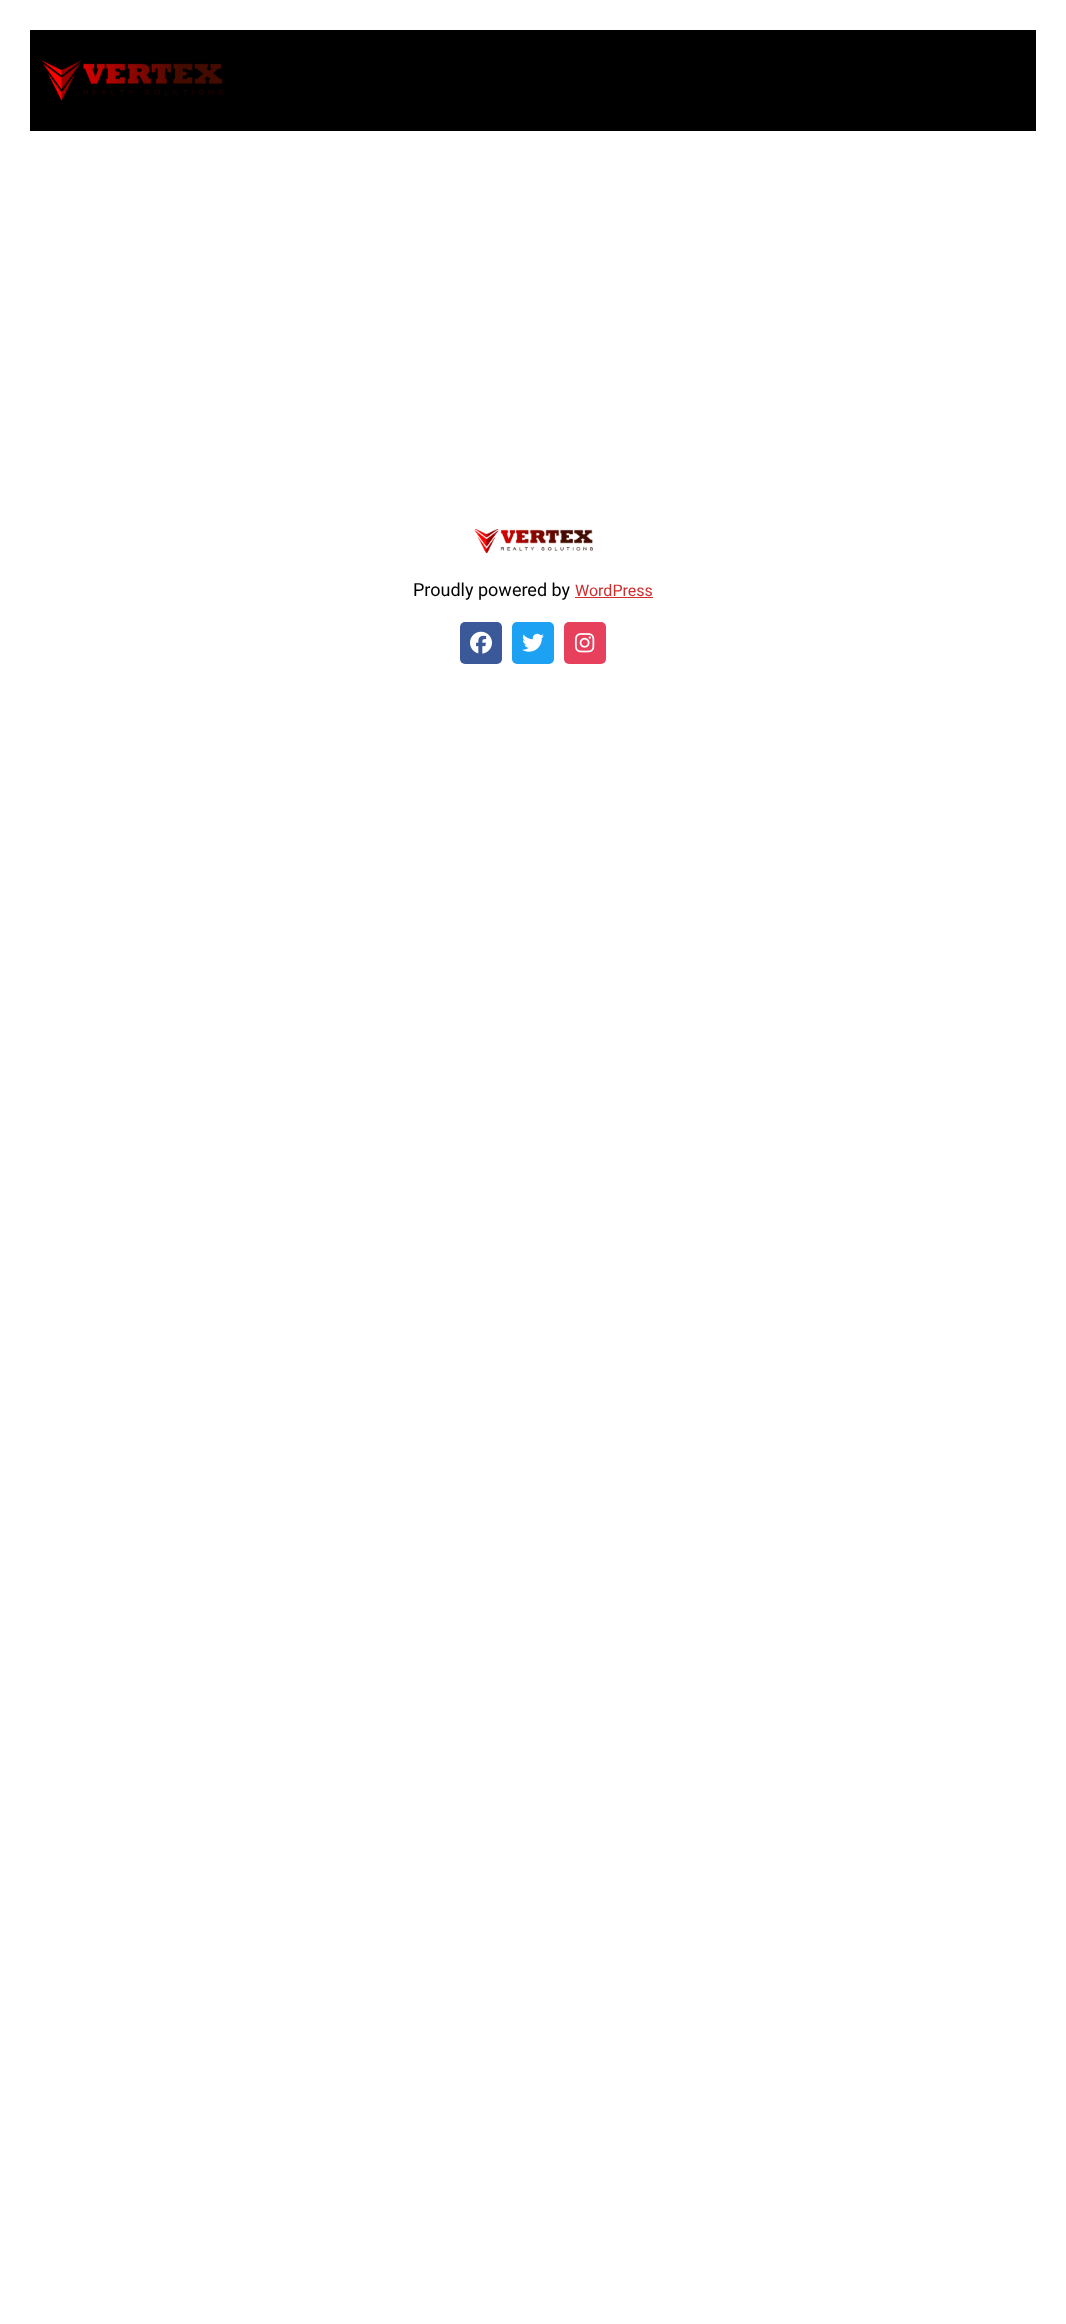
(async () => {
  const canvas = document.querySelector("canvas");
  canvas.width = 1066;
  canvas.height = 2324;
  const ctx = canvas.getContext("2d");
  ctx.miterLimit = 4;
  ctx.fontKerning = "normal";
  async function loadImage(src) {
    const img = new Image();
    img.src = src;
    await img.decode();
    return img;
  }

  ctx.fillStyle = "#ffffff";
  ctx.fillRect(0, 0, 1066, 2324);
  ctx.fillStyle = "#000000";
  ctx.fillRect(30, 30, 1006, 101);
  ctx.drawImage(await loadImage("img/1.png"), 41, 60, 182, 41);
  ctx.drawImage(await loadImage("img/2.png"), 474, 529, 119, 24);
  ctx.fillStyle = "#cf2e2e";
  ctx.fillRect(575, 597, 78, 1);
  ctx.fillStyle = "#3b5998";
  ctx.beginPath();
  ctx.roundRect(460, 622, 42, 42, 5);
  ctx.fill();
  ctx.drawImage(await loadImage("img/3.png"), 470, 631, 22, 23);
  ctx.fillStyle = "#1da1f2";
  ctx.beginPath();
  ctx.roundRect(512, 622, 42, 42, 5);
  ctx.fill();
  ctx.drawImage(await loadImage("img/4.png"), 522, 633, 22, 19);
  ctx.fillStyle = "#e6405d";
  ctx.beginPath();
  ctx.roundRect(564, 622, 42, 42, 5);
  ctx.fill();
  ctx.drawImage(await loadImage("img/5.png"), 575, 633, 20, 20);
  ctx.font = "18px Roboto";
  ctx.fillStyle = "#000000";
  ctx.fillText("Proudly powered by", 413, 596);
  ctx.font = "16px Roboto";
  ctx.fillStyle = "#cf2e2e";
  ctx.fillText("WordPress", 575, 596);
})();
